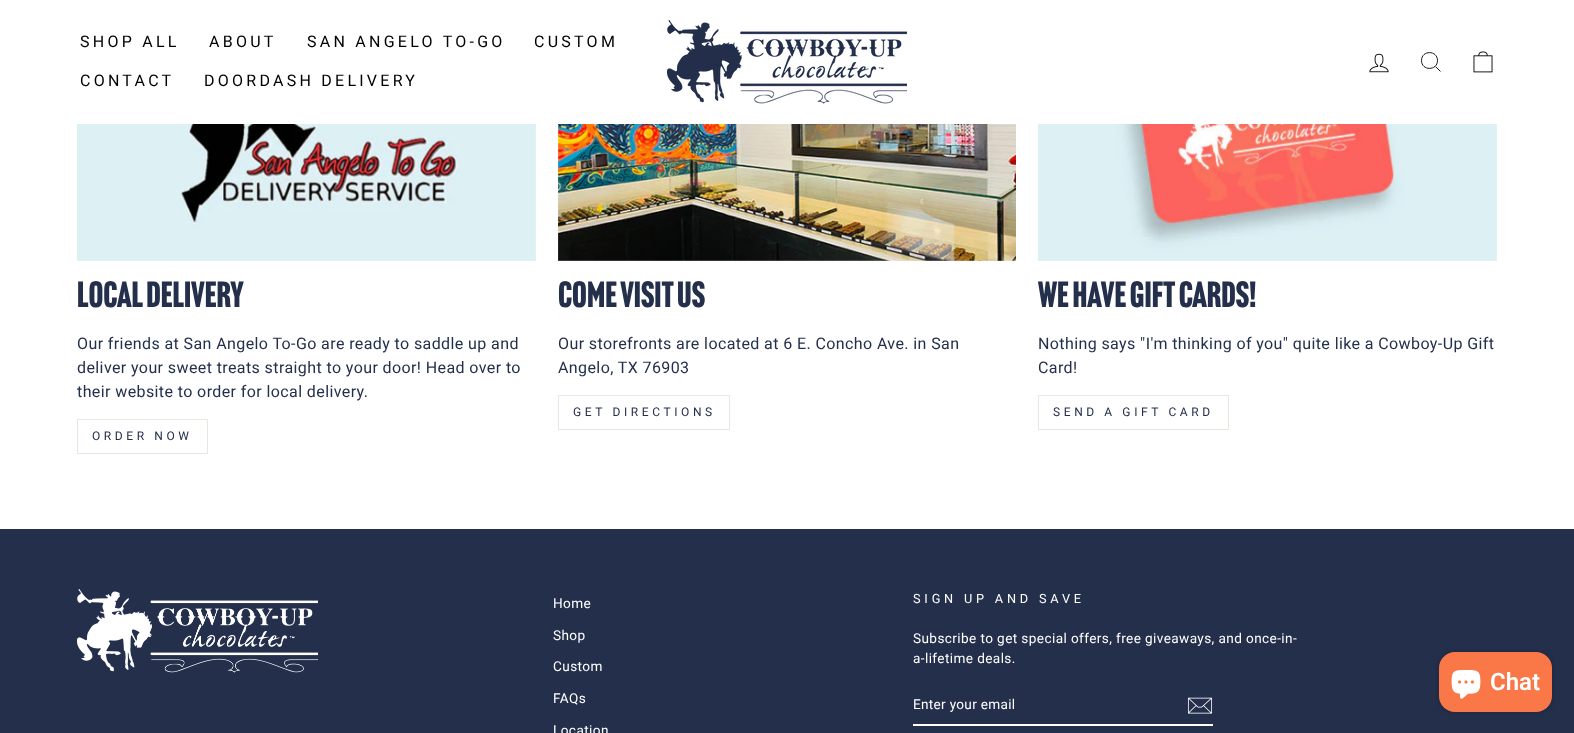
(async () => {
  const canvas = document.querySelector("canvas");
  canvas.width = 1574;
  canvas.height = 733;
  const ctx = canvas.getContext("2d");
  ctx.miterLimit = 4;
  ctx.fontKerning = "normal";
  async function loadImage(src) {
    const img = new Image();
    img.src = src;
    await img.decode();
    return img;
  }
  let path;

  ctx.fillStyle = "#ffffff";
  ctx.fillRect(0, 0, 1574, 733);
  ctx.drawImage(await loadImage("img/4.png"), 77, 124, 459, 137);
  ctx.drawImage(await loadImage("img/5.png"), 558, 124, 458, 137);
  ctx.drawImage(await loadImage("img/6.png"), 1038, 124, 459, 137);
  ctx.fillStyle = "rgba(0, 0, 0, 0.2)";
  ctx.filter = "blur(0.5px)";
  ctx.beginPath();
  ctx.rect(0, 0, 1574, 124);
  ctx.fill();
  ctx.filter = "none";
  ctx.fillStyle = "#ffffff";
  ctx.fillRect(0, 0, 1574, 124);
  ctx.drawImage(await loadImage("img/1.png"), 667, 20, 240, 84);
  ctx.drawImage(await loadImage("img/2.png"), 1369, 53, 20, 20);
  path = new Path2D("M1437.5 60.5C1437.5 71 1421.5 71 1421.5 60.5C1421.5 50 1437.5 50 1437.5 60.5ZM1440.5 71.5L1435.5 66.5");
  ctx.strokeStyle = "#000000";
  ctx.lineWidth = 0.9;
  ctx.stroke(path);
  ctx.drawImage(await loadImage("img/3.png"), 1473, 51, 20, 22);
  ctx.strokeStyle = "#e8e8e1";
  ctx.lineWidth = 1;
  ctx.strokeRect(77.5, 419.5, 130, 34);
  ctx.strokeRect(558.5, 395.5, 171, 34);
  ctx.strokeRect(1038.5, 395.5, 190, 34);
  ctx.fillStyle = "#232f4b";
  ctx.fillRect(0, 529, 1574, 204);
  ctx.drawImage(await loadImage("img/7.png"), 77, 589, 241, 84);
  ctx.fillStyle = "#ffffff";
  ctx.fillRect(913, 724, 300, 2);
  ctx.drawImage(await loadImage("img/8.png"), 1187, 697, 26, 17);
  ctx.fillStyle = "rgba(0, 0, 0, 0.15)";
  ctx.filter = "blur(2.5px)";
  ctx.beginPath();
  ctx.roundRect(1439, 652, 113, 60, 16);
  ctx.fill();
  ctx.filter = "none";
  ctx.fillStyle = "#fa7847";
  ctx.beginPath();
  ctx.roundRect(1439, 652, 113, 60, 16);
  ctx.fill();
  ctx.drawImage(await loadImage("img/9.png"), 1451, 670, 30, 29);
  ctx.letterSpacing = "3.25px";
  ctx.font = "16px Roboto";
  ctx.fillStyle = "#000000";
  for (const [text, x, y] of [
    ["SHOP ALL", 80, 47],
    ["ABOUT", 209, 47],
    ["SAN ANGELO TO-GO", 307, 47],
    ["CUSTOM", 534, 47],
    ["CONTACT", 80, 86],
    ["DOORDASH DELIVERY", 204, 86],
  ]) {
    ctx.fillText(text, x, y);
  }
  ctx.letterSpacing = "0px";
  ctx.font = "35.75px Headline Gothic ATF";
  ctx.fillStyle = "#232f4b";
  ctx.fillText("LOCAL DELIVERY", 77, 307);
  ctx.letterSpacing = "0.4px";
  ctx.font = "16px Roboto";
  for (const [text, x, y] of [
    ["Our friends at San Angelo To-Go are ready to saddle up and", 77, 349],
    ["deliver your sweet treats straight to your door! Head over to", 77, 373],
    ["their website to order for local delivery.", 77, 397],
  ]) {
    ctx.fillText(text, x, y);
  }
  ctx.letterSpacing = "3.6px";
  ctx.font = "12px Roboto";
  ctx.fillText("ORDER NOW", 92, 440);
  ctx.letterSpacing = "0px";
  ctx.font = "35.75px Headline Gothic ATF";
  ctx.fillText("COME VISIT US", 558, 307);
  ctx.letterSpacing = "0.4px";
  ctx.font = "16px Roboto";
  ctx.fillText("Our storefronts are located at 6 E. Concho Ave. in San", 558, 349);
  ctx.fillText("Angelo, TX 76903", 558, 373);
  ctx.letterSpacing = "3.6px";
  ctx.font = "12px Roboto";
  ctx.fillText("GET DIRECTIONS", 573, 416);
  ctx.letterSpacing = "0px";
  ctx.font = "35.75px Headline Gothic ATF";
  ctx.fillText("WE HAVE GIFT CARDS!", 1038, 307);
  ctx.letterSpacing = "0.4px";
  ctx.font = "16px Roboto";
  ctx.fillText("Nothing says \"I'm thinking of you\" quite like a Cowboy-Up Gift", 1038, 349);
  ctx.fillText("Card!", 1038, 373);
  ctx.letterSpacing = "3.6px";
  ctx.font = "12px Roboto";
  ctx.fillText("SEND A GIFT CARD", 1053, 416);
  ctx.letterSpacing = "0.4px";
  ctx.font = "13.6px Roboto";
  ctx.fillStyle = "#ffffff";
  for (const [text, x, y] of [
    ["Home", 553, 608],
    ["Shop", 553, 640],
    ["Custom", 553, 671],
    ["FAQs", 553, 703],
    ["Location", 553, 735],
  ]) {
    ctx.fillText(text, x, y);
  }
  ctx.letterSpacing = "3.8px";
  ctx.font = "12.75px Roboto";
  ctx.fillText("SIGN UP AND SAVE", 913, 603);
  ctx.letterSpacing = "0.4px";
  ctx.font = "13.6px Roboto";
  ctx.fillText("Subscribe to get special offers, free giveaways, and once-in-", 913, 643);
  ctx.fillText("a-lifetime deals.", 913, 663);
  ctx.letterSpacing = "0.3px";
  ctx.fillText("Enter your email", 913, 709);
  ctx.letterSpacing = "0px";
  ctx.font = "600 24px Roboto";
  ctx.fillText("Chat", 1490, 690);
})();
